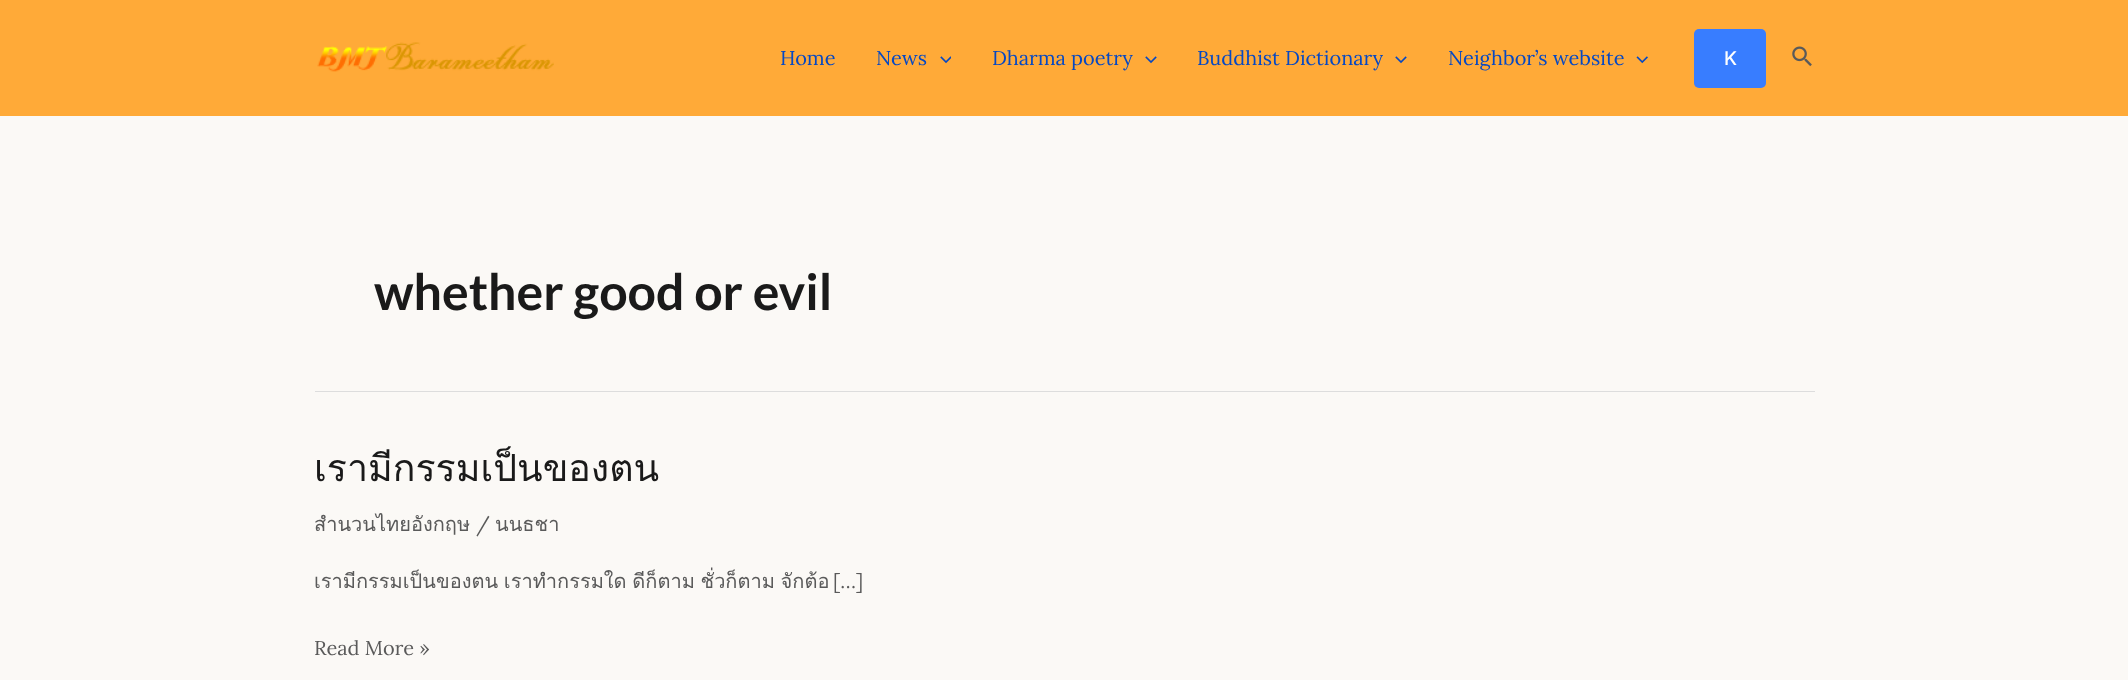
(async () => {
  const canvas = document.querySelector("canvas");
  canvas.width = 2128;
  canvas.height = 680;
  const ctx = canvas.getContext("2d");
  ctx.miterLimit = 4;
  ctx.fontKerning = "normal";
  async function loadImage(src) {
    const img = new Image();
    img.src = src;
    await img.decode();
    return img;
  }

  ctx.fillStyle = "#fbf9f6";
  ctx.fillRect(0, 0, 2128, 680);
  ctx.fillStyle = "#ffaa38";
  ctx.fillRect(0, 0, 2128, 116);
  ctx.drawImage(await loadImage("img/1.png"), 317, 42, 237, 30);
  ctx.drawImage(await loadImage("img/2.png"), 940, 56, 11, 8);
  ctx.drawImage(await loadImage("img/3.png"), 1145, 56, 12, 8);
  ctx.drawImage(await loadImage("img/3.png"), 1395, 56, 12, 8);
  ctx.drawImage(await loadImage("img/4.png"), 1636, 56, 12, 8);
  ctx.fillStyle = "#387dff";
  ctx.beginPath();
  ctx.roundRect(1694, 29, 72, 59, 5);
  ctx.fill();
  ctx.drawImage(await loadImage("img/5.png"), 1792, 46, 20, 21);
  ctx.fillStyle = "#dddddd";
  ctx.fillRect(315, 391, 1500, 1);
  ctx.font = "20px Lora";
  ctx.fillStyle = "#0548c4";
  for (const [text, x, y] of [
    ["Home", 780, 65],
    ["News", 876, 65],
    ["Dharma poetry", 992, 65],
    ["Buddhist Dictionary", 1197, 65],
    ["Neighbor’s website", 1448, 65],
  ]) {
    ctx.fillText(text, x, y);
  }
  ctx.font = "500 19px Inter";
  ctx.fillStyle = "#ffffff";
  ctx.fillText("K", 1724, 65);
  ctx.font = "bold 50px Lato";
  ctx.fillStyle = "#1a1a1a";
  ctx.fillText("whether good or evil", 374, 310);
  ctx.font = "37.5px Loma";
  ctx.fillText("เรามีกรรมเป็นของตน", 314, 481);
  ctx.save();
  ctx.beginPath();
  ctx.rect(315, 443, 1500, 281);
  ctx.clip();
  ctx.font = "20px Loma";
  ctx.fillStyle = "#5a5a5a";
  ctx.fillText("สำนวนไทยอังกฤษ", 314, 531);
  ctx.restore();
  ctx.font = "20px Lora";
  ctx.fillStyle = "#5a5a5a";
  ctx.fillText("/", 476, 531);
  ctx.font = "20px Loma";
  ctx.fillText("นนธชา", 495, 531);
  ctx.wordSpacing = "-1px";
  ctx.fillText("เรามีกรรมเป็นของตน เราทำกรรมใด ดีก็ตาม ชั่วก็ตาม จักต้อ", 314, 588);
  ctx.wordSpacing = "0px";
  ctx.font = "20px Lora";
  ctx.fillText("[…]", 833, 588);
  ctx.fillText("Read More »", 314, 655);
})();
